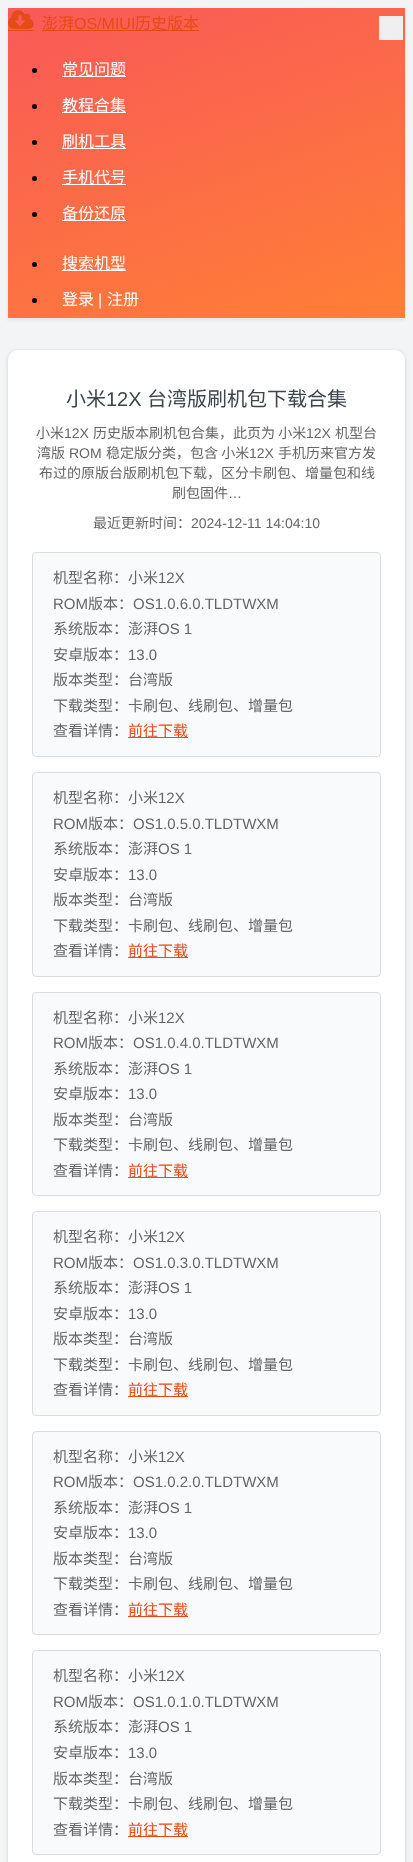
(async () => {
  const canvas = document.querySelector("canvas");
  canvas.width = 413;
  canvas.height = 1862;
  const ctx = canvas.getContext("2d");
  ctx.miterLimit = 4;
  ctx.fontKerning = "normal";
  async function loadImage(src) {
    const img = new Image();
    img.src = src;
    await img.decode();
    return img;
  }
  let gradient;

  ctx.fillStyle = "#f3f4f6";
  ctx.fillRect(0, 0, 413, 1862);
  ctx.fillStyle = "rgba(0, 0, 0, 0.07)";
  ctx.filter = "blur(2px)";
  ctx.beginPath();
  ctx.rect(8, 10, 397, 310);
  ctx.fill();
  ctx.filter = "none";
  gradient = ctx.createLinearGradient(280, 364, 133, -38);
  gradient.addColorStop(0, "#ff7f35");
  gradient.addColorStop(1, "#f95958");
  ctx.fillStyle = gradient;
  ctx.fillRect(8, 8, 397, 310);
  ctx.drawImage(await loadImage("img/1.png"), 8, 10, 26, 19);
  for (const [x, y, w, h, color] of [
    [8, 30, 26, 1, "#e64a19"],
    [42, 30, 157, 1, "#e64a19"],
    [379, 16, 24, 24, "#efefef"],
  ]) {
    ctx.fillStyle = color;
    ctx.fillRect(x, y, w, h);
  }
  ctx.fillStyle = "#000000";
  ctx.beginPath();
  ctx.arc(34.5, 70.5, 2.5, 0, Math.PI * 2);
  ctx.fill();
  ctx.fillStyle = "#ffffff";
  ctx.fillRect(62, 76, 64, 1);
  ctx.fillStyle = "#000000";
  ctx.beginPath();
  ctx.arc(34.5, 106.5, 2.5, 0, Math.PI * 2);
  ctx.fill();
  ctx.fillStyle = "#ffffff";
  ctx.fillRect(62, 112, 64, 1);
  ctx.fillStyle = "#000000";
  ctx.beginPath();
  ctx.arc(34.5, 142.5, 2.5, 0, Math.PI * 2);
  ctx.fill();
  ctx.fillStyle = "#ffffff";
  ctx.fillRect(62, 148, 64, 1);
  ctx.fillStyle = "#000000";
  ctx.beginPath();
  ctx.arc(34.5, 178.5, 2.5, 0, Math.PI * 2);
  ctx.fill();
  ctx.fillStyle = "#ffffff";
  ctx.fillRect(62, 184, 64, 1);
  ctx.fillStyle = "#000000";
  ctx.beginPath();
  ctx.arc(34.5, 214.5, 2.5, 0, Math.PI * 2);
  ctx.fill();
  ctx.fillStyle = "#ffffff";
  ctx.fillRect(62, 220, 64, 1);
  ctx.fillStyle = "#000000";
  ctx.beginPath();
  ctx.arc(34.5, 264.5, 2.5, 0, Math.PI * 2);
  ctx.fill();
  ctx.fillStyle = "#ffffff";
  ctx.fillRect(62, 270, 64, 1);
  ctx.fillStyle = "#000000";
  ctx.beginPath();
  ctx.arc(34.5, 300.5, 2.5, 0, Math.PI * 2);
  ctx.fill();
  ctx.fillStyle = "rgba(0, 0, 0, 0.14)";
  ctx.filter = "blur(2px)";
  ctx.beginPath();
  ctx.roundRect(8, 351, 397, 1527, 10);
  ctx.fill();
  ctx.filter = "none";
  ctx.fillStyle = "#ffffff";
  ctx.beginPath();
  ctx.roundRect(8, 350, 397, 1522, 10);
  ctx.fill();
  ctx.fillStyle = "#f9fafb";
  ctx.beginPath();
  ctx.roundRect(32.5, 552.5, 348, 204, 3.5);
  ctx.fill();
  ctx.strokeStyle = "#dddddd";
  ctx.stroke();
  ctx.fillStyle = "#e64a19";
  ctx.fillRect(128, 737, 60, 1);
  ctx.fillStyle = "#f9fafb";
  ctx.beginPath();
  ctx.roundRect(32.5, 772.5, 348, 204, 3.5);
  ctx.fill();
  ctx.stroke();
  ctx.fillStyle = "#e64a19";
  ctx.fillRect(128, 957, 60, 1);
  ctx.fillStyle = "#f9fafb";
  ctx.beginPath();
  ctx.roundRect(32.5, 992.5, 348, 203, 3.5);
  ctx.fill();
  ctx.stroke();
  ctx.fillStyle = "#e64a19";
  ctx.fillRect(128, 1177, 60, 1);
  ctx.fillStyle = "#f9fafb";
  ctx.beginPath();
  ctx.roundRect(32.5, 1211.5, 348, 204, 3.5);
  ctx.fill();
  ctx.stroke();
  ctx.fillStyle = "#e64a19";
  ctx.fillRect(128, 1396, 60, 1);
  ctx.fillStyle = "#f9fafb";
  ctx.beginPath();
  ctx.roundRect(32.5, 1431.5, 348, 203, 3.5);
  ctx.fill();
  ctx.stroke();
  ctx.fillStyle = "#e64a19";
  ctx.fillRect(128, 1616, 60, 1);
  ctx.fillStyle = "#f9fafb";
  ctx.beginPath();
  ctx.roundRect(32.5, 1650.5, 348, 204, 3.5);
  ctx.fill();
  ctx.stroke();
  ctx.fillStyle = "#e64a19";
  ctx.fillRect(128, 1836, 60, 1);
  ctx.font = "16px Noto Sans CJK SC";
  ctx.fillText("澎湃", 42, 29);
  ctx.font = "16px Liberation Sans";
  ctx.fillText("OS/MIUI", 74, 29);
  ctx.font = "16px Noto Sans CJK SC";
  ctx.fillText("历史版本", 135, 29);
  ctx.fillStyle = "#ffffff";
  for (const [text, x, y] of [
    ["常见问题", 62, 75],
    ["教程合集", 62, 111],
    ["刷机工具", 62, 147],
    ["手机代号", 62, 183],
    ["备份还原", 62, 219],
    ["搜索机型", 62, 269],
    ["登录", 62, 305],
  ]) {
    ctx.fillText(text, x, y);
  }
  ctx.font = "16px Liberation Sans";
  ctx.fillText("|", 98, 305);
  ctx.font = "16px Noto Sans CJK SC";
  ctx.fillText("注册", 107, 305);
  ctx.font = "20px Noto Sans CJK SC";
  ctx.fillStyle = "#3d454d";
  ctx.fillText("小米", 66, 406);
  ctx.font = "20px Liberation Sans";
  ctx.fillText("12X", 106, 406);
  ctx.font = "20px Noto Sans CJK SC";
  ctx.fillText("台湾版刷机包下载合集", 147, 406);
  ctx.font = "14px Noto Sans CJK SC";
  ctx.fillStyle = "#666666";
  ctx.fillText("小米", 36, 438);
  ctx.font = "14px Liberation Sans";
  ctx.fillText("12X", 64, 438);
  ctx.font = "14px Noto Sans CJK SC";
  ctx.fillText("历史版本刷机包合集，此页为 小米", 93, 438);
  ctx.font = "14px Liberation Sans";
  ctx.fillText("12X", 306, 438);
  ctx.font = "14px Noto Sans CJK SC";
  ctx.fillText("机型台", 335, 438);
  ctx.fillText("湾版", 37, 458);
  ctx.font = "14px Liberation Sans";
  ctx.fillText("ROM", 69, 458);
  ctx.font = "14px Noto Sans CJK SC";
  ctx.fillText("稳定版分类，包含 小米", 106, 458);
  ctx.font = "14px Liberation Sans";
  ctx.fillText("12X", 249, 458);
  ctx.font = "14px Noto Sans CJK SC";
  for (const [text, x, y] of [
    ["手机历来官方发", 278, 458],
    ["布过的原版台版刷机包下载，区分卡刷包、增量包和线", 39, 478],
    ["刷包固件", 172, 498],
  ]) {
    ctx.fillText(text, x, y);
  }
  ctx.font = "14px Liberation Sans";
  ctx.fillText("…", 228, 498);
  ctx.font = "14px Noto Sans CJK SC";
  ctx.fillText("最近更新时间：", 93, 528);
  ctx.font = "14px Liberation Sans";
  ctx.fillText("2024-12-11 14:04:10", 191, 528);
  ctx.font = "15px Noto Sans CJK SC";
  ctx.fillText("机型名称：小米", 53, 583);
  ctx.font = "15px Liberation Sans";
  ctx.fillText("12X", 158, 583);
  ctx.fillText("ROM", 53, 609);
  ctx.font = "15px Noto Sans CJK SC";
  ctx.fillText("版本：", 88, 609);
  ctx.font = "15px Liberation Sans";
  ctx.fillText("OS1.0.6.0.TLDTWXM", 133, 609);
  ctx.font = "15px Noto Sans CJK SC";
  ctx.fillText("系统版本：澎湃", 53, 634);
  ctx.font = "15px Liberation Sans";
  ctx.fillText("OS 1", 158, 634);
  ctx.font = "15px Noto Sans CJK SC";
  ctx.fillText("安卓版本：", 53, 660);
  ctx.font = "15px Liberation Sans";
  ctx.fillText("13.0", 128, 660);
  ctx.font = "15px Noto Sans CJK SC";
  for (const [text, x, y] of [
    ["版本类型：台湾版", 53, 685],
    ["下载类型：卡刷包、线刷包、增量包", 53, 711],
    ["查看详情：", 53, 736],
  ]) {
    ctx.fillText(text, x, y);
  }
  ctx.fillStyle = "#e64a19";
  ctx.fillText("前往下载", 128, 736);
  ctx.fillStyle = "#666666";
  ctx.fillText("机型名称：小米", 53, 803);
  ctx.font = "15px Liberation Sans";
  ctx.fillText("12X", 158, 803);
  ctx.fillText("ROM", 53, 829);
  ctx.font = "15px Noto Sans CJK SC";
  ctx.fillText("版本：", 88, 829);
  ctx.font = "15px Liberation Sans";
  ctx.fillText("OS1.0.5.0.TLDTWXM", 133, 829);
  ctx.font = "15px Noto Sans CJK SC";
  ctx.fillText("系统版本：澎湃", 53, 854);
  ctx.font = "15px Liberation Sans";
  ctx.fillText("OS 1", 158, 854);
  ctx.font = "15px Noto Sans CJK SC";
  ctx.fillText("安卓版本：", 53, 880);
  ctx.font = "15px Liberation Sans";
  ctx.fillText("13.0", 128, 880);
  ctx.font = "15px Noto Sans CJK SC";
  for (const [text, x, y] of [
    ["版本类型：台湾版", 53, 905],
    ["下载类型：卡刷包、线刷包、增量包", 53, 931],
    ["查看详情：", 53, 956],
  ]) {
    ctx.fillText(text, x, y);
  }
  ctx.fillStyle = "#e64a19";
  ctx.fillText("前往下载", 128, 956);
  ctx.fillStyle = "#666666";
  ctx.fillText("机型名称：小米", 53, 1023);
  ctx.font = "15px Liberation Sans";
  ctx.fillText("12X", 158, 1023);
  ctx.fillText("ROM", 53, 1048);
  ctx.font = "15px Noto Sans CJK SC";
  ctx.fillText("版本：", 88, 1048);
  ctx.font = "15px Liberation Sans";
  ctx.fillText("OS1.0.4.0.TLDTWXM", 133, 1048);
  ctx.font = "15px Noto Sans CJK SC";
  ctx.fillText("系统版本：澎湃", 53, 1074);
  ctx.font = "15px Liberation Sans";
  ctx.fillText("OS 1", 158, 1074);
  ctx.font = "15px Noto Sans CJK SC";
  ctx.fillText("安卓版本：", 53, 1099);
  ctx.font = "15px Liberation Sans";
  ctx.fillText("13.0", 128, 1099);
  ctx.font = "15px Noto Sans CJK SC";
  for (const [text, x, y] of [
    ["版本类型：台湾版", 53, 1125],
    ["下载类型：卡刷包、线刷包、增量包", 53, 1150],
    ["查看详情：", 53, 1176],
  ]) {
    ctx.fillText(text, x, y);
  }
  ctx.fillStyle = "#e64a19";
  ctx.fillText("前往下载", 128, 1176);
  ctx.fillStyle = "#666666";
  ctx.fillText("机型名称：小米", 53, 1242);
  ctx.font = "15px Liberation Sans";
  ctx.fillText("12X", 158, 1242);
  ctx.fillText("ROM", 53, 1268);
  ctx.font = "15px Noto Sans CJK SC";
  ctx.fillText("版本：", 88, 1268);
  ctx.font = "15px Liberation Sans";
  ctx.fillText("OS1.0.3.0.TLDTWXM", 133, 1268);
  ctx.font = "15px Noto Sans CJK SC";
  ctx.fillText("系统版本：澎湃", 53, 1293);
  ctx.font = "15px Liberation Sans";
  ctx.fillText("OS 1", 158, 1293);
  ctx.font = "15px Noto Sans CJK SC";
  ctx.fillText("安卓版本：", 53, 1319);
  ctx.font = "15px Liberation Sans";
  ctx.fillText("13.0", 128, 1319);
  ctx.font = "15px Noto Sans CJK SC";
  for (const [text, x, y] of [
    ["版本类型：台湾版", 53, 1344],
    ["下载类型：卡刷包、线刷包、增量包", 53, 1370],
    ["查看详情：", 53, 1395],
  ]) {
    ctx.fillText(text, x, y);
  }
  ctx.fillStyle = "#e64a19";
  ctx.fillText("前往下载", 128, 1395);
  ctx.fillStyle = "#666666";
  ctx.fillText("机型名称：小米", 53, 1462);
  ctx.font = "15px Liberation Sans";
  ctx.fillText("12X", 158, 1462);
  ctx.fillText("ROM", 53, 1487);
  ctx.font = "15px Noto Sans CJK SC";
  ctx.fillText("版本：", 88, 1487);
  ctx.font = "15px Liberation Sans";
  ctx.fillText("OS1.0.2.0.TLDTWXM", 133, 1487);
  ctx.font = "15px Noto Sans CJK SC";
  ctx.fillText("系统版本：澎湃", 53, 1513);
  ctx.font = "15px Liberation Sans";
  ctx.fillText("OS 1", 158, 1513);
  ctx.font = "15px Noto Sans CJK SC";
  ctx.fillText("安卓版本：", 53, 1538);
  ctx.font = "15px Liberation Sans";
  ctx.fillText("13.0", 128, 1538);
  ctx.font = "15px Noto Sans CJK SC";
  for (const [text, x, y] of [
    ["版本类型：台湾版", 53, 1564],
    ["下载类型：卡刷包、线刷包、增量包", 53, 1589],
    ["查看详情：", 53, 1615],
  ]) {
    ctx.fillText(text, x, y);
  }
  ctx.fillStyle = "#e64a19";
  ctx.fillText("前往下载", 128, 1615);
  ctx.fillStyle = "#666666";
  ctx.fillText("机型名称：小米", 53, 1681);
  ctx.font = "15px Liberation Sans";
  ctx.fillText("12X", 158, 1681);
  ctx.fillText("ROM", 53, 1707);
  ctx.font = "15px Noto Sans CJK SC";
  ctx.fillText("版本：", 88, 1707);
  ctx.font = "15px Liberation Sans";
  ctx.fillText("OS1.0.1.0.TLDTWXM", 133, 1707);
  ctx.font = "15px Noto Sans CJK SC";
  ctx.fillText("系统版本：澎湃", 53, 1732);
  ctx.font = "15px Liberation Sans";
  ctx.fillText("OS 1", 158, 1732);
  ctx.font = "15px Noto Sans CJK SC";
  ctx.fillText("安卓版本：", 53, 1758);
  ctx.font = "15px Liberation Sans";
  ctx.fillText("13.0", 128, 1758);
  ctx.font = "15px Noto Sans CJK SC";
  for (const [text, x, y] of [
    ["版本类型：台湾版", 53, 1784],
    ["下载类型：卡刷包、线刷包、增量包", 53, 1809],
    ["查看详情：", 53, 1835],
  ]) {
    ctx.fillText(text, x, y);
  }
  ctx.fillStyle = "#e64a19";
  ctx.fillText("前往下载", 128, 1835);
})();
